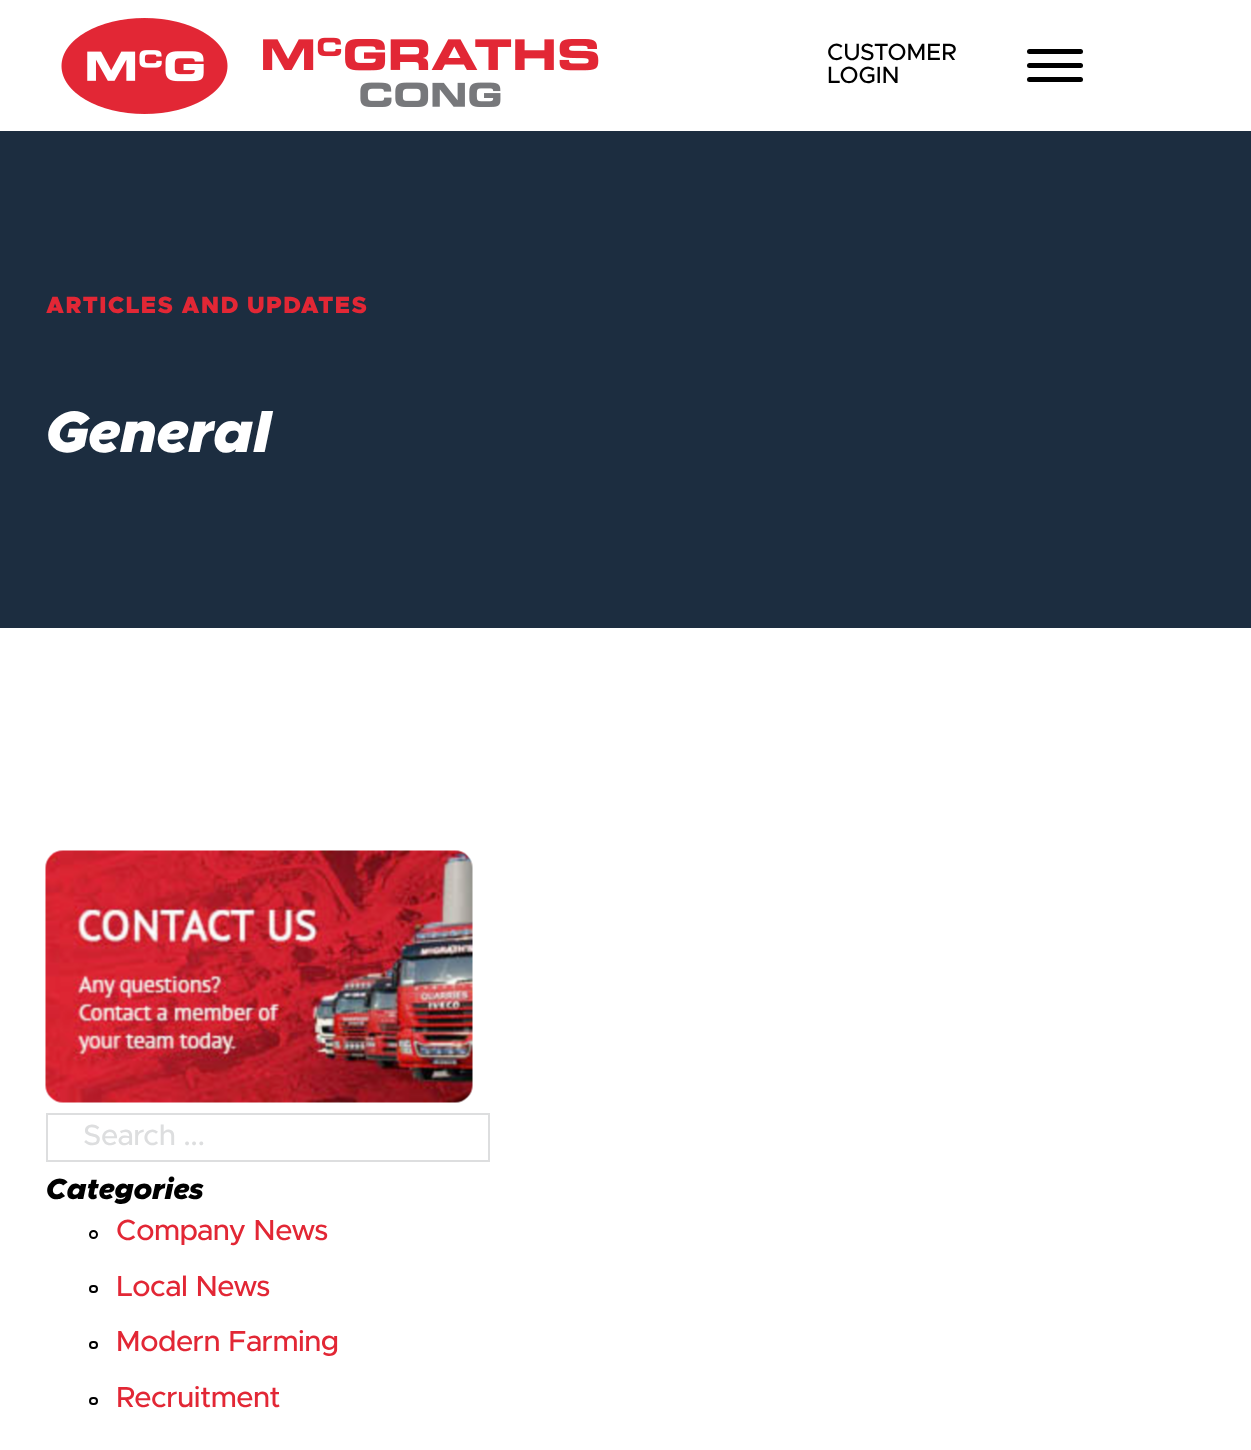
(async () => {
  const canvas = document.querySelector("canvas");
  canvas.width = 1251;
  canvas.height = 1450;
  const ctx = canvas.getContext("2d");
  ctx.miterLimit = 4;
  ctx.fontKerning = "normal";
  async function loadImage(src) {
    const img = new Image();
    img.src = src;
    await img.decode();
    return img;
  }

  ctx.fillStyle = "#ffffff";
  ctx.fillRect(0, 0, 1251, 1450);
  ctx.drawImage(await loadImage("img/1.png"), 61, 18, 538, 96);
  ctx.fillStyle = "#000000";
  ctx.beginPath();
  ctx.roundRect(1027, 49, 56, 5, 2.5);
  ctx.fill();
  ctx.beginPath();
  ctx.roundRect(1027, 63, 56, 5, 2.5);
  ctx.fill();
  ctx.beginPath();
  ctx.roundRect(1027, 77, 56, 5, 2.5);
  ctx.fill();
  ctx.fillStyle = "#1c2d40";
  ctx.fillRect(0, 131, 1251, 497);
  ctx.drawImage(await loadImage("img/2.png"), 45, 850, 428, 253);
  ctx.strokeStyle = "#dddedf";
  ctx.lineWidth = 2;
  ctx.strokeRect(47, 1114, 442, 47);
  ctx.beginPath();
  ctx.arc(93.5, 1234.5, 3.5, 0, Math.PI * 2);
  ctx.strokeStyle = "#000000";
  ctx.stroke();
  ctx.beginPath();
  ctx.roundRect(90, 1286, 7, 6, 3);
  ctx.stroke();
  ctx.beginPath();
  ctx.roundRect(90, 1342, 7, 6, 3);
  ctx.stroke();
  ctx.beginPath();
  ctx.roundRect(90, 1398, 7, 6, 3);
  ctx.stroke();
  ctx.font = "500 23.5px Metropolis";
  ctx.fillStyle = "#000000";
  ctx.fillText("CUSTOMER", 827, 60);
  ctx.fillText("LOGIN", 827, 83);
  ctx.letterSpacing = "1.2px";
  ctx.font = "900 23.5px Metropolis";
  ctx.fillStyle = "#e22735";
  ctx.fillText("ARTICLES AND UPDATES", 46, 313);
  ctx.letterSpacing = "0px";
  ctx.font = "italic 900 58.5px Metropolis";
  ctx.fillStyle = "#ffffff";
  ctx.fillText("General", 46, 452);
  ctx.font = "500 29.25px Metropolis";
  ctx.fillStyle = "#dddedf";
  ctx.fillText("Search ...", 83, 1145);
  ctx.font = "italic 900 29.25px Metropolis";
  ctx.fillStyle = "#000000";
  ctx.fillText("Categories", 46, 1199);
  ctx.font = "500 29.25px Metropolis";
  ctx.fillStyle = "#e22735";
  for (const [text, x, y] of [
    ["Company News", 116, 1240],
    ["Local News", 116, 1296],
    ["Modern Farming", 116, 1351],
    ["Recruitment", 116, 1407],
  ]) {
    ctx.fillText(text, x, y);
  }
})();
